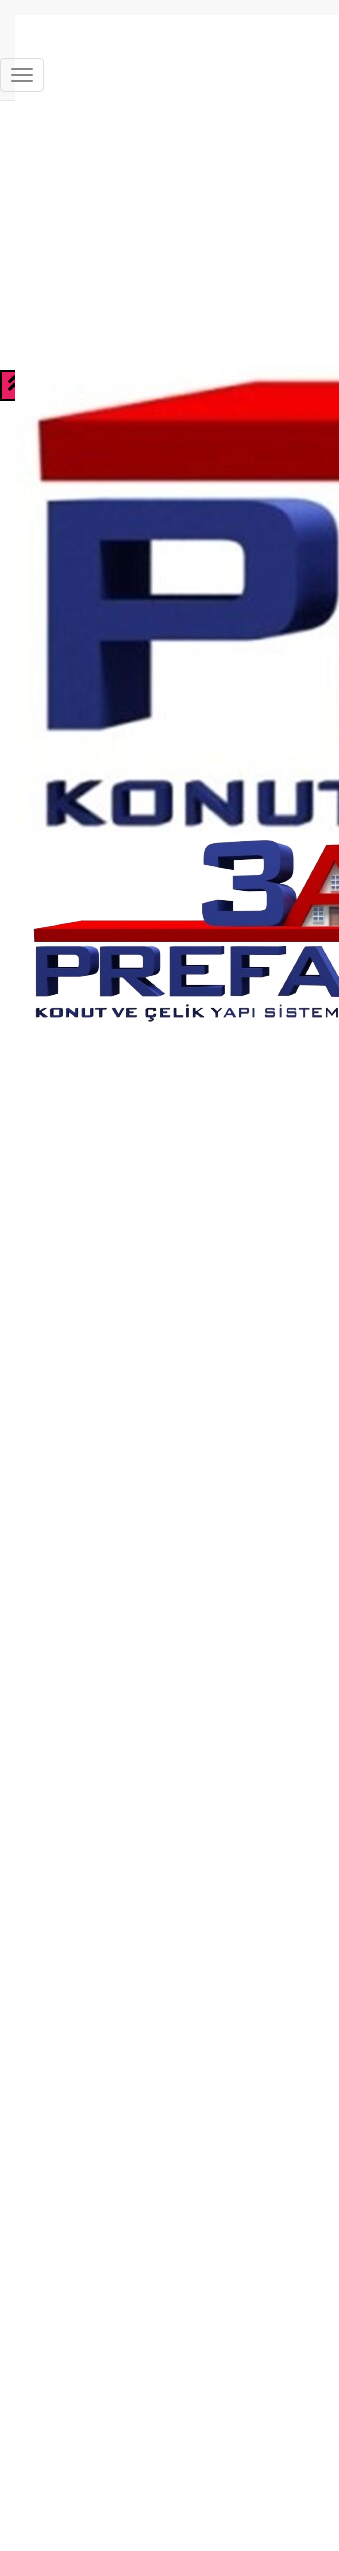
(async () => {
  const canvas = document.querySelector("canvas");
  canvas.width = 339;
  canvas.height = 2551;
  const ctx = canvas.getContext("2d");
  ctx.miterLimit = 4;
  ctx.fontKerning = "normal";
  async function loadImage(src) {
    const img = new Image();
    img.src = src;
    await img.decode();
    return img;
  }

  ctx.fillStyle = "#ffffff";
  ctx.fillRect(0, 0, 339, 2551);
  for (const [x, y, w, h, color] of [
    [0, 0, 339, 100, "#f8f8f8"],
    [0, 100, 15, 1, "#e7e7e7"],
    [2, 372, 13, 27, "#e91e63"],
  ]) {
    ctx.fillStyle = color;
    ctx.fillRect(x, y, w, h);
  }
  ctx.strokeStyle = "#000000";
  ctx.lineWidth = 2;
  ctx.strokeRect(1, 371, 27, 29);
  ctx.drawImage(await loadImage("img/1.png"), 15, 15, 324, 818);
  ctx.drawImage(await loadImage("img/2.png"), 33, 840, 306, 182);
  ctx.beginPath();
  ctx.roundRect(0.5, 58.5, 43, 33, 3.5);
  ctx.strokeStyle = "#dddddd";
  ctx.lineWidth = 1;
  ctx.stroke();
  ctx.fillStyle = "#888888";
  ctx.beginPath();
  ctx.roundRect(11, 68, 22, 2, 1);
  ctx.fill();
  ctx.beginPath();
  ctx.roundRect(11, 74, 22, 2, 1);
  ctx.fill();
  ctx.beginPath();
  ctx.roundRect(11, 80, 22, 2, 1);
  ctx.fill();
  ctx.drawImage(await loadImage("img/3.png"), 8, 375, 7, 16);
})();
